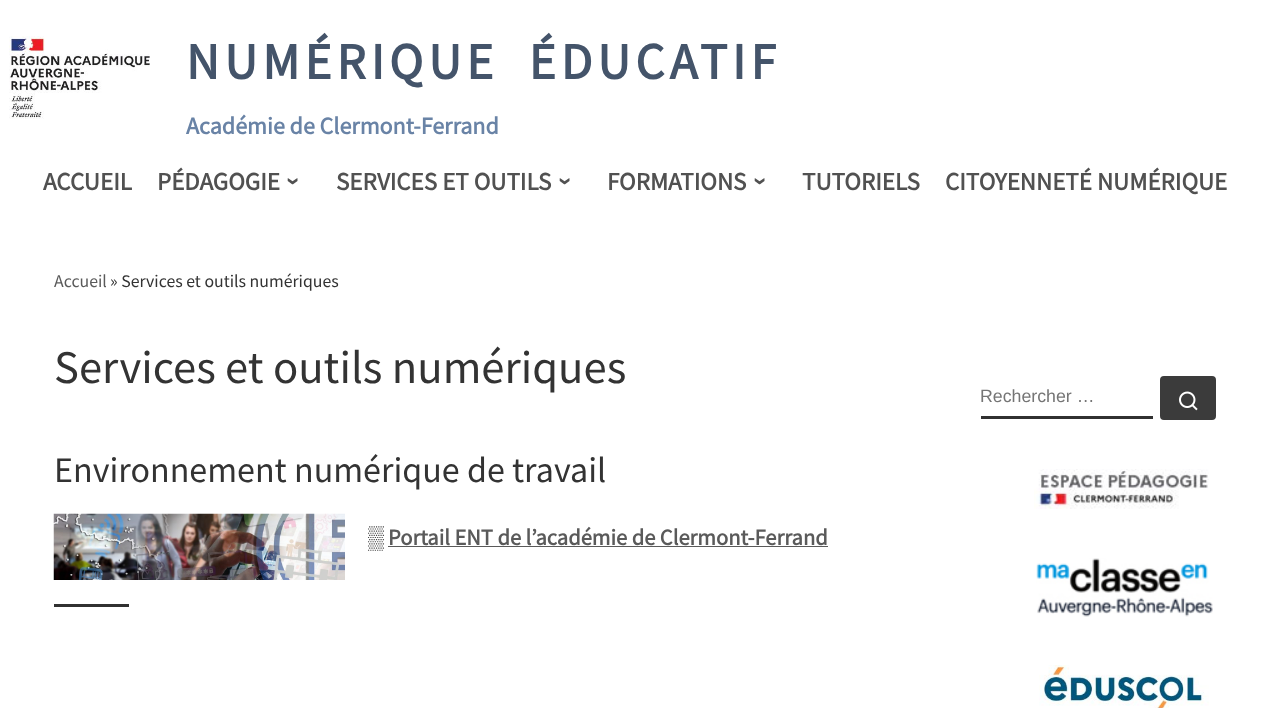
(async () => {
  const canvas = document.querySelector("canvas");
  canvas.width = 1269;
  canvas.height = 708;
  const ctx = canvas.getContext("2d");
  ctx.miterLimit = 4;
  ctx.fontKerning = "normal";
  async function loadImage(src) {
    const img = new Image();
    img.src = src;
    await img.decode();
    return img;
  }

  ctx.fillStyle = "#ffffff";
  ctx.fillRect(0, 0, 1269, 708);
  ctx.drawImage(await loadImage("img/1.png"), 9, 36, 141, 83);
  ctx.drawImage(await loadImage("img/2.png"), 53, 513, 292, 67);
  for (const [x, y, w, h, color] of [
    [54, 604, 75, 3, "#313131"],
    [388, 546, 440, 1, "#5a5a5a"],
    [981, 416, 172, 3, "#313131"],
  ]) {
    ctx.fillStyle = color;
    ctx.fillRect(x, y, w, h);
  }
  ctx.fillStyle = "#3b3b3b";
  ctx.beginPath();
  ctx.roundRect(1161.5, 377.5, 53, 41, 2.5);
  ctx.fill();
  ctx.strokeStyle = "#3b3b3b";
  ctx.lineWidth = 3;
  ctx.stroke();
  ctx.drawImage(await loadImage("img/3.png"), 1179, 391, 19, 20);
  ctx.drawImage(await loadImage("img/4.png"), 1034, 469, 175, 40);
  ctx.drawImage(await loadImage("img/5.png"), 1036, 558, 177, 59);
  ctx.drawImage(await loadImage("img/6.png"), 1039, 665, 170, 43);
  ctx.letterSpacing = "5px";
  ctx.font = "bold 51.25px Source Sans Pro";
  ctx.fillStyle = "#44546a";
  ctx.fillText("NUMÉRIQUE  ÉDUCATIF", 186, 79);
  ctx.letterSpacing = "0px";
  ctx.font = "bold 24px Source Sans Pro";
  ctx.fillStyle = "#6983a6";
  ctx.fillText("Académie de Clermont-Ferrand", 186, 134);
  ctx.font = "bold 25px Source Sans Pro";
  ctx.fillStyle = "#515151";
  ctx.fillText("ACCUEIL", 43, 190);
  ctx.fillText("PÉDAGOGIE", 157, 190);
  ctx.font = "bold 25px Liberation Sans";
  ctx.save();
  ctx.translate(286, 177);
  ctx.rotate(90 * Math.PI / 180);
  ctx.fillText("›", 0, 0);
  ctx.restore();
  ctx.font = "bold 25px Source Sans Pro";
  ctx.fillText("SERVICES ET OUTILS", 336, 190);
  ctx.font = "bold 25px Liberation Sans";
  ctx.save();
  ctx.translate(558, 177);
  ctx.rotate(90 * Math.PI / 180);
  ctx.fillText("›", 0, 0);
  ctx.restore();
  ctx.font = "bold 25px Source Sans Pro";
  ctx.fillText("FORMATIONS", 607, 190);
  ctx.font = "bold 25px Liberation Sans";
  ctx.save();
  ctx.translate(753, 177);
  ctx.rotate(90 * Math.PI / 180);
  ctx.fillText("›", 0, 0);
  ctx.restore();
  ctx.font = "bold 25px Source Sans Pro";
  ctx.fillText("TUTORIELS", 802, 190);
  ctx.fillText("CITOYENNETÉ NUMÉRIQUE", 945, 190);
  ctx.font = "17.75px Source Sans Pro";
  ctx.fillStyle = "#5a5a5a";
  ctx.fillText("Accueil", 54, 287);
  ctx.fillStyle = "#333333";
  ctx.fillText("» Services et outils numériques", 110, 287);
  ctx.font = "46.7px Source Sans Pro";
  ctx.fillText("Services et outils numériques", 54, 383);
  ctx.font = "36px Source Sans Pro";
  ctx.fillText("Environnement numérique de travail", 54, 482);
  ctx.font = "22.5px Liberation Sans";
  ctx.fillStyle = "#444444";
  ctx.fillText("▒", 368, 545);
  ctx.font = "bold 22.5px Source Sans Pro";
  ctx.fillStyle = "#5a5a5a";
  ctx.fillText("Portail ENT de l’académie de Clermont-Ferrand", 388, 545);
  ctx.font = "17.75px Liberation Sans";
  ctx.fillStyle = "#757575";
  ctx.fillText("Rechercher …", 980, 402);
})();
